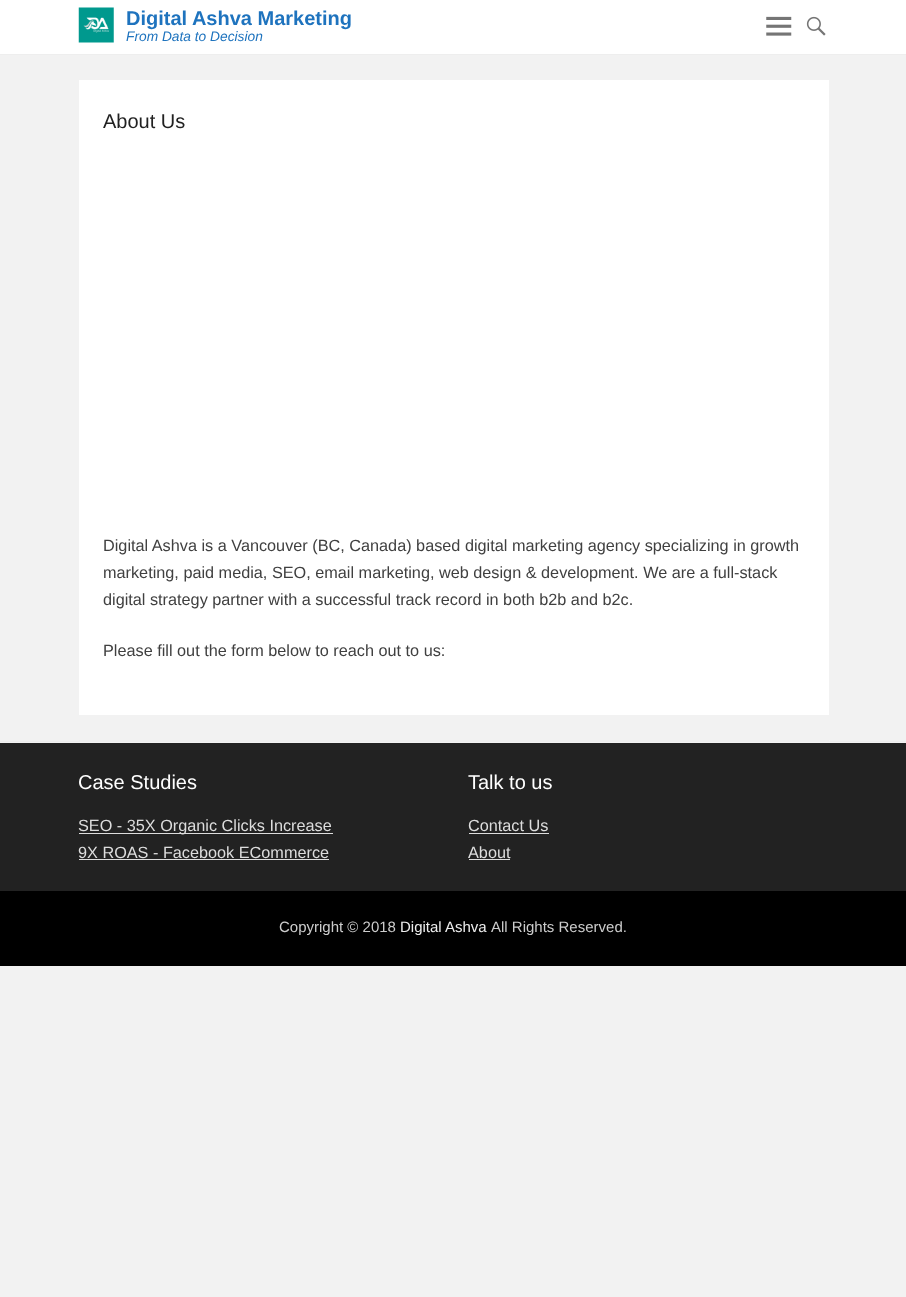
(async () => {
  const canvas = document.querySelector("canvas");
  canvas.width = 906;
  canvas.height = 1297;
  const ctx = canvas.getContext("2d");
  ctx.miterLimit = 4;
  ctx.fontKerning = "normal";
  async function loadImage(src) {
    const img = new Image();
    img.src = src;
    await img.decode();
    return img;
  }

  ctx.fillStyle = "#f2f2f2";
  ctx.fillRect(0, 0, 906, 1297);
  ctx.fillStyle = "#ffffff";
  ctx.fillRect(0, 0, 906, 54);
  ctx.fillStyle = "#eeeeee";
  ctx.fillRect(0, 54, 906, 1);
  ctx.drawImage(await loadImage("img/1.png"), 78, 7, 36, 36);
  ctx.drawImage(await loadImage("img/2.png"), 766, 16, 26, 20);
  ctx.drawImage(await loadImage("img/3.png"), 806, 16, 20, 20);
  for (const [x, y, w, h, color] of [
    [79, 740, 750, 1, "#eeeeee"],
    [79, 80, 750, 635, "#ffffff"],
    [0, 741, 906, 1, "#eeeeee"],
    [0, 743, 906, 148, "#222222"],
    [79, 833, 254, 1, "#dddddd"],
    [79, 859, 250, 1, "#dddddd"],
    [469, 833, 80, 1, "#dddddd"],
    [469, 859, 41, 1, "#dddddd"],
    [0, 891, 906, 75, "#000000"],
  ]) {
    ctx.fillStyle = color;
    ctx.fillRect(x, y, w, h);
  }
  ctx.font = "bold 20px Liberation Sans";
  ctx.fillStyle = "#1e73be";
  ctx.fillText("Digital Ashva Marketing", 126, 25);
  ctx.font = "italic 13.75px Liberation Sans";
  ctx.fillText("From Data to Decision", 126, 41);
  ctx.font = "20px Liberation Sans";
  ctx.fillStyle = "#222222";
  ctx.fillText("About Us", 103, 128);
  ctx.font = "16.25px Liberation Sans";
  ctx.fillStyle = "#404040";
  for (const [text, x, y] of [
    ["Digital Ashva is a Vancouver (BC, Canada) based digital marketing agency specializing in growth", 103, 551],
    ["marketing, paid media, SEO, email marketing, web design & development. We are a full-stack", 103, 578],
    ["digital strategy partner with a successful track record in both b2b and b2c.", 103, 605],
    ["Please fill out the form below to reach out to us:", 103, 656],
  ]) {
    ctx.fillText(text, x, y);
  }
  ctx.font = "20px Liberation Sans";
  ctx.fillStyle = "#ffffff";
  ctx.fillText("Case Studies", 78, 789);
  ctx.font = "16.25px Liberation Sans";
  ctx.fillStyle = "#dddddd";
  ctx.fillText("SEO - 35X Organic Clicks Increase", 78, 831);
  ctx.fillText("9X ROAS - Facebook ECommerce", 78, 858);
  ctx.font = "20px Liberation Sans";
  ctx.fillStyle = "#ffffff";
  ctx.fillText("Talk to us", 468, 789);
  ctx.font = "16.25px Liberation Sans";
  ctx.fillStyle = "#dddddd";
  ctx.fillText("Contact Us", 468, 831);
  ctx.fillText("About", 468, 858);
  ctx.font = "15px Liberation Sans";
  ctx.fillStyle = "#cccccc";
  ctx.fillText("Copyright © 2018", 279, 932);
  ctx.fillStyle = "#eeeeee";
  ctx.fillText("Digital Ashva", 400, 932);
  ctx.fillStyle = "#cccccc";
  ctx.fillText("All Rights Reserved.", 491, 932);
})();
